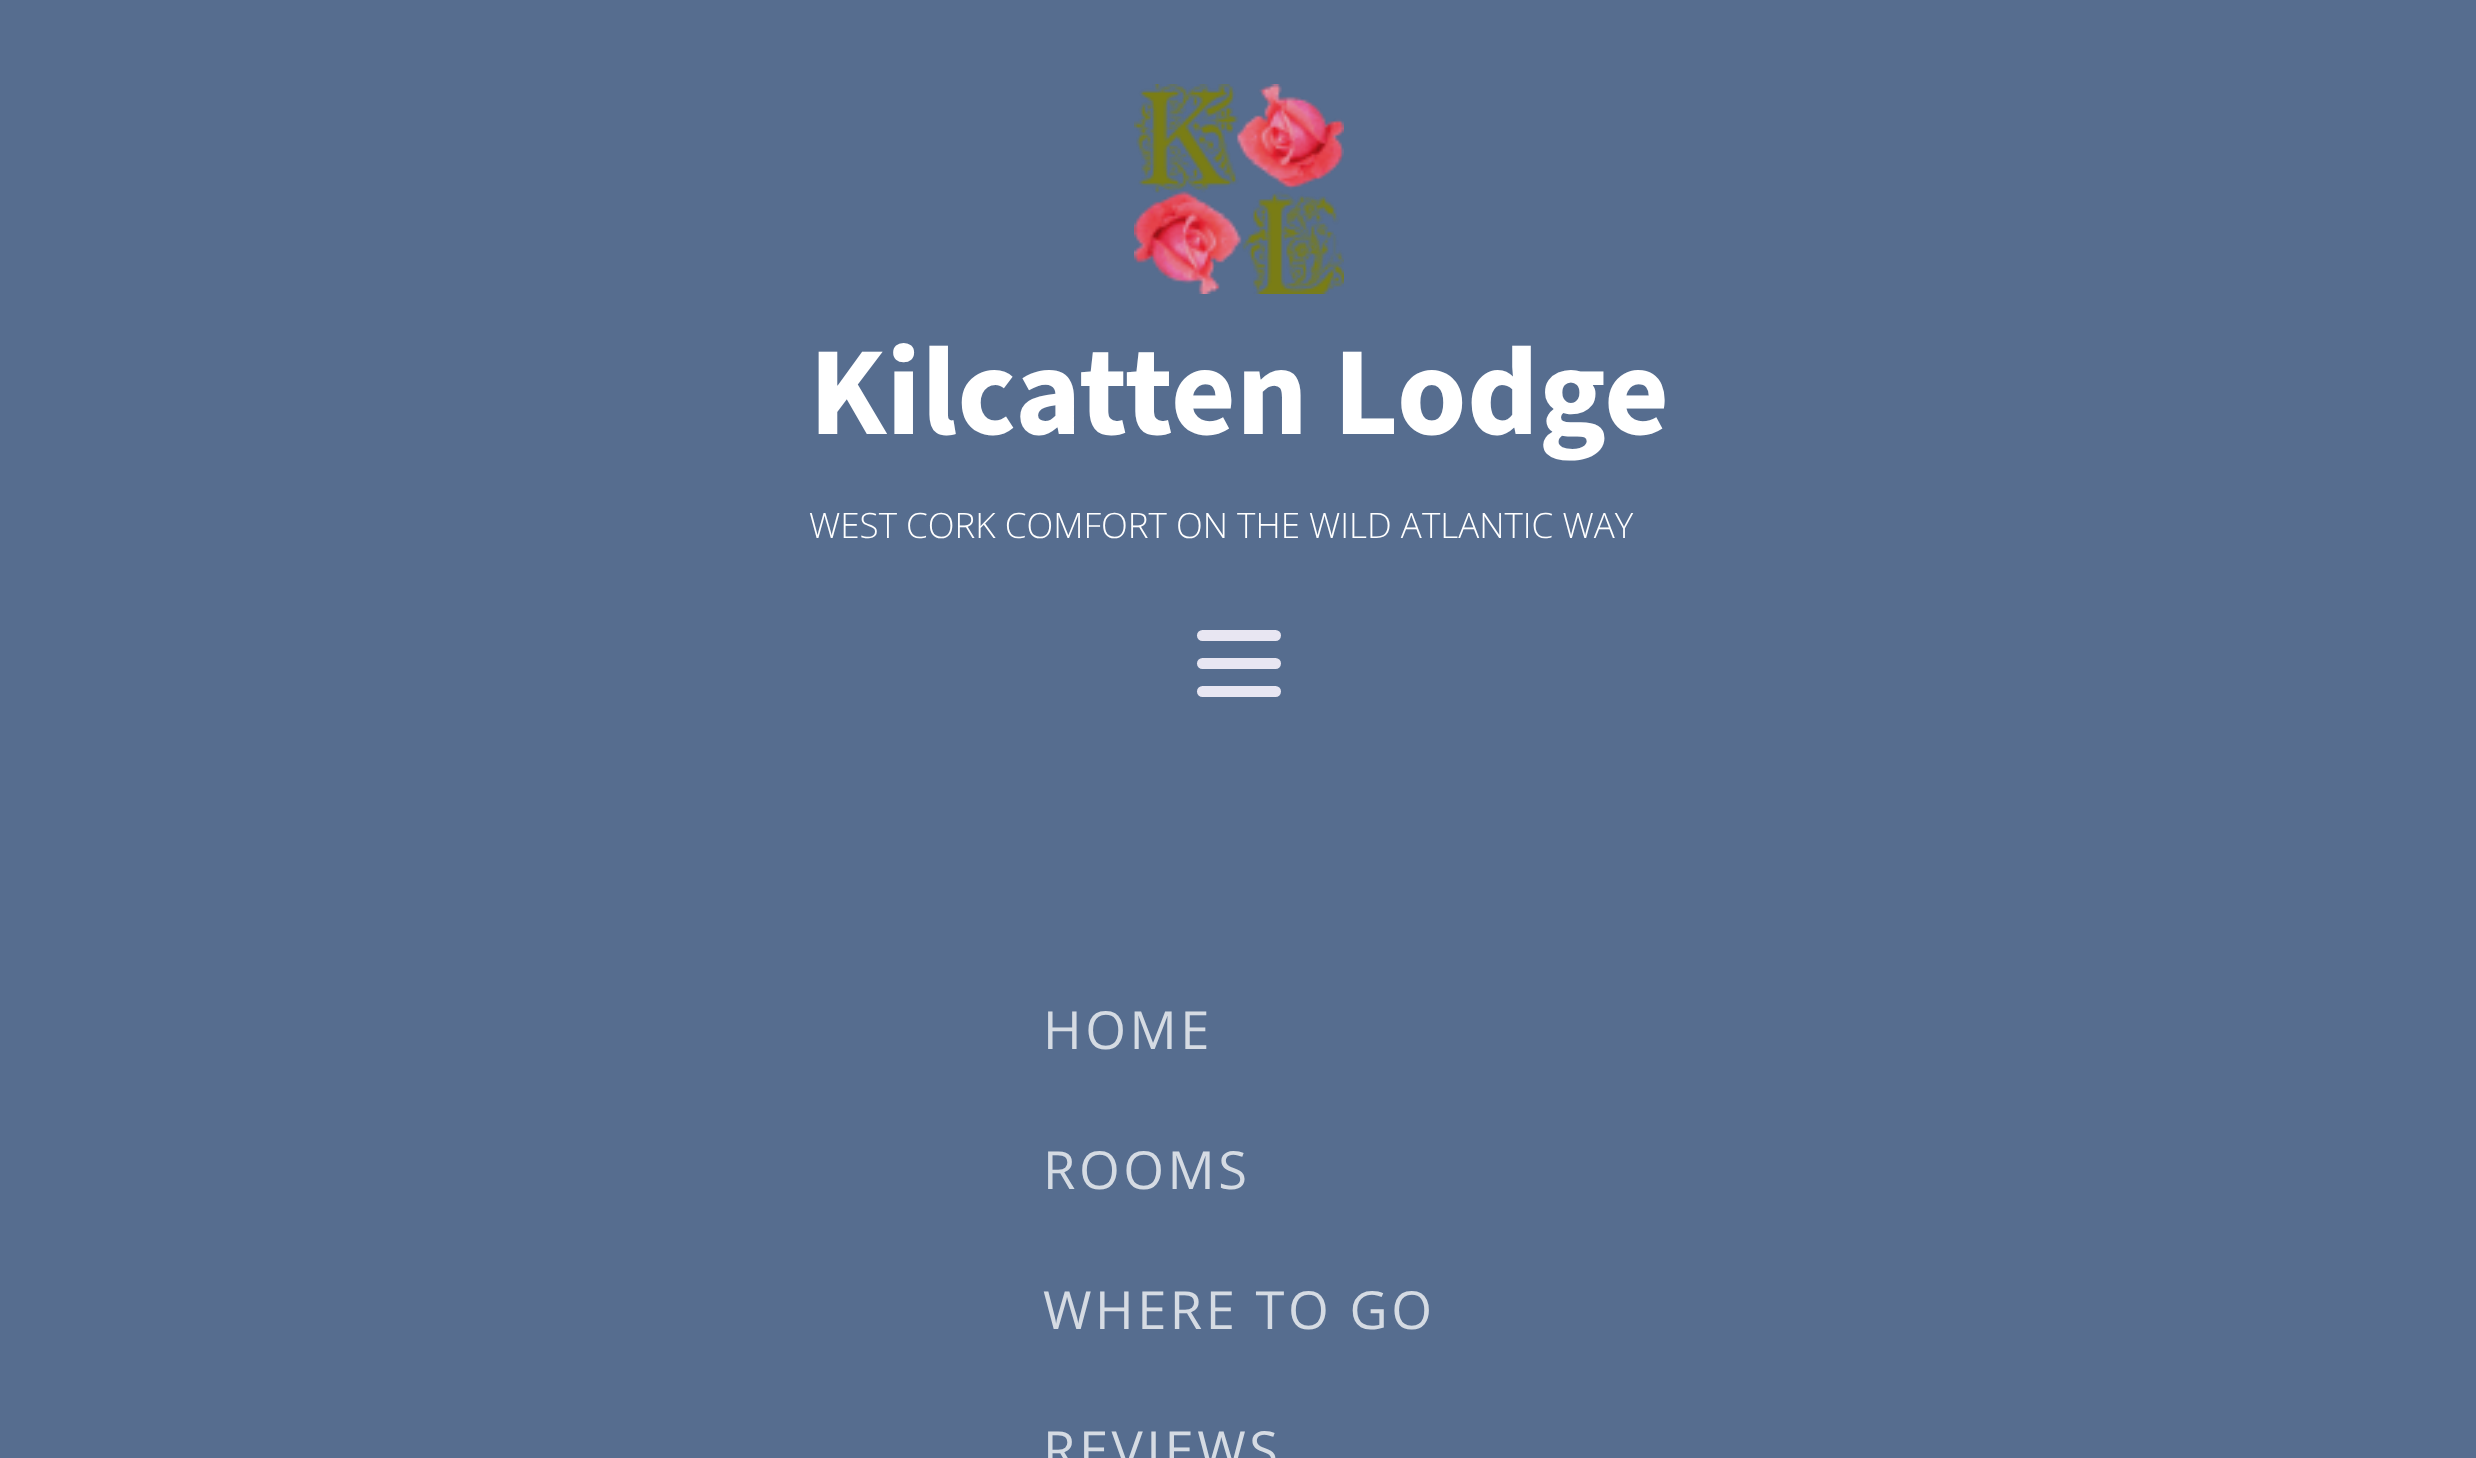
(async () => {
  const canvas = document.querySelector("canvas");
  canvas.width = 2476;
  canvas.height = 1458;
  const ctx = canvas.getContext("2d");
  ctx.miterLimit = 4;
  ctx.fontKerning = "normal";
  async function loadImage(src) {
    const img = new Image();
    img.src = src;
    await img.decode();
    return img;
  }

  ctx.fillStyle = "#566d8f";
  ctx.fillRect(0, 0, 2476, 1458);
  ctx.drawImage(await loadImage("img/1.png"), 1134, 84, 210, 210);
  ctx.fillStyle = "#e8e6f2";
  ctx.beginPath();
  ctx.roundRect(1197, 630, 84, 11, 5.5);
  ctx.fill();
  ctx.beginPath();
  ctx.roundRect(1197, 658, 84, 11, 5.5);
  ctx.fill();
  ctx.beginPath();
  ctx.roundRect(1197, 686, 84, 11, 5.5);
  ctx.fill();
  ctx.font = "bold 126px 'Source Sans 3'";
  ctx.fillStyle = "#ffffff";
  ctx.fillText("Kilcatten Lodge", 809, 434);
  ctx.font = "300 35px Open Sans";
  ctx.fillText("WEST CORK COMFORT ON THE WILD ATLANTIC WAY", 809, 538);
  ctx.letterSpacing = "3.5px";
  ctx.font = "52.5px Open Sans";
  ctx.fillStyle = "#d5dbe3";
  for (const [text, x, y] of [
    ["HOME", 1043, 1049],
    ["ROOMS", 1043, 1189],
    ["WHERE TO GO", 1043, 1329],
    ["REVIEWS", 1043, 1469],
  ]) {
    ctx.fillText(text, x, y);
  }
})();
